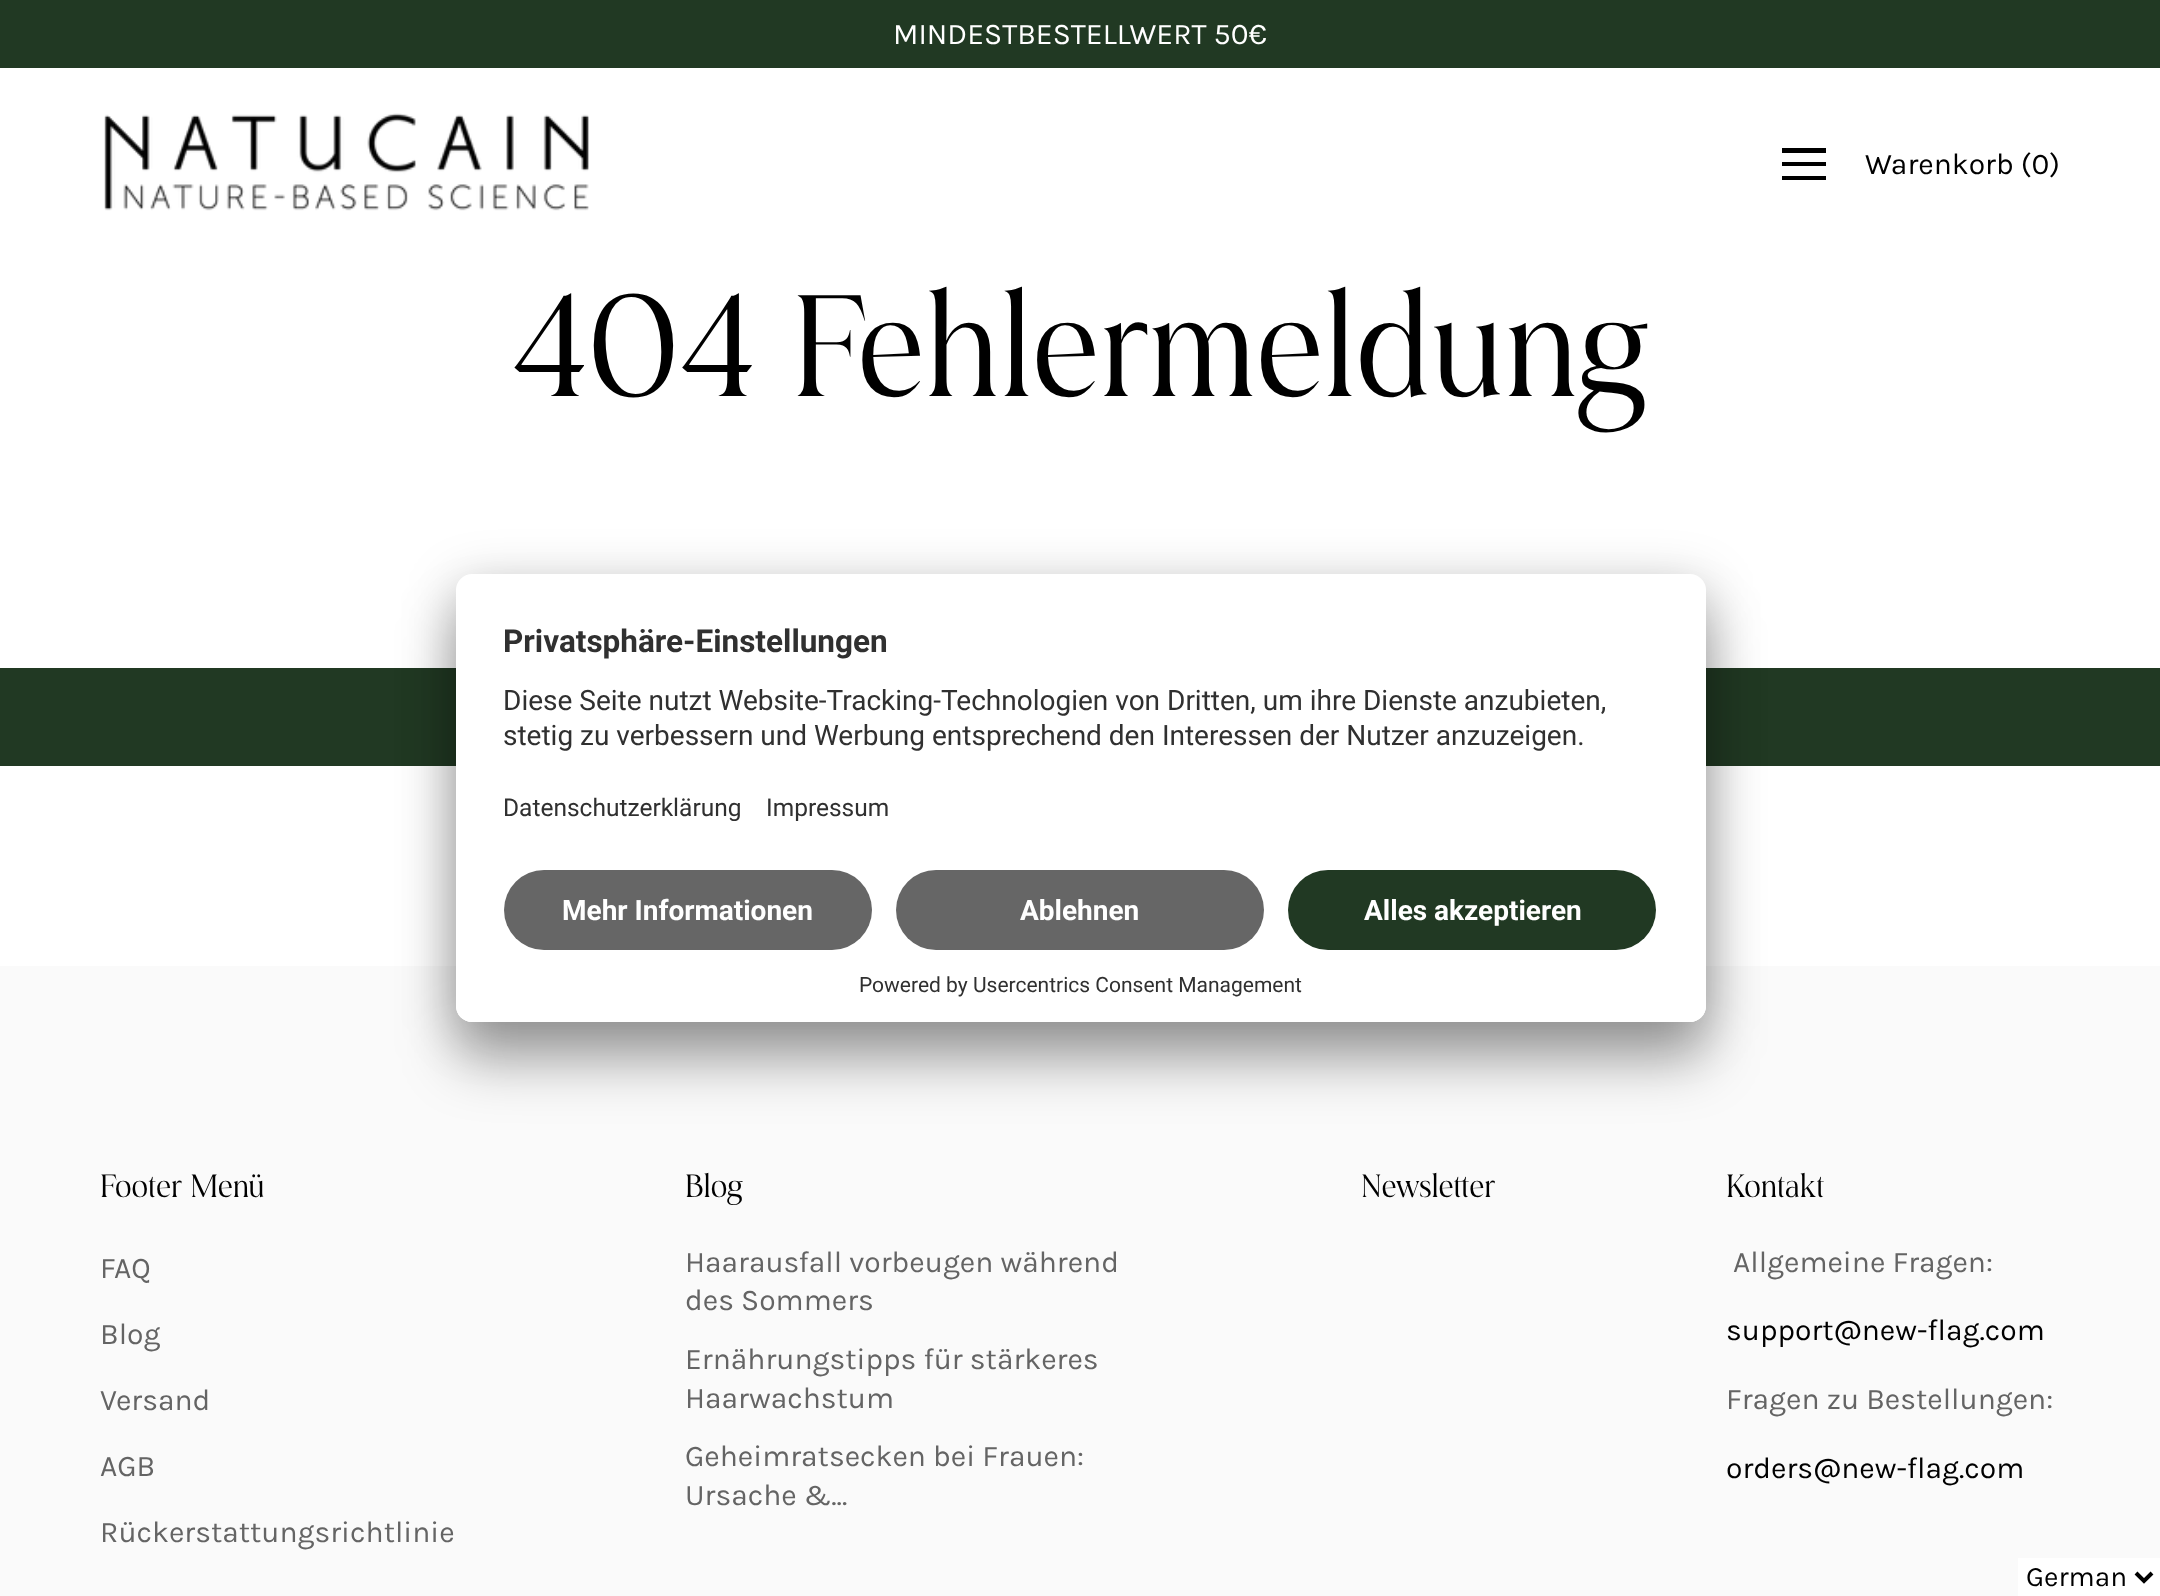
(async () => {
  const canvas = document.querySelector("canvas");
  canvas.width = 2160;
  canvas.height = 1596;
  const ctx = canvas.getContext("2d");
  ctx.miterLimit = 4;
  ctx.fontKerning = "normal";
  async function loadImage(src) {
    const img = new Image();
    img.src = src;
    await img.decode();
    return img;
  }
  let path;

  ctx.fillStyle = "#ffffff";
  ctx.fillRect(0, 0, 2160, 1596);
  ctx.fillStyle = "#213923";
  ctx.fillRect(0, 0, 2160, 68);
  ctx.drawImage(await loadImage("img/1.png"), 104, 113, 485, 98);
  ctx.fillStyle = "#000000";
  path = new Path2D("M1782 148V153H1826V148ZM1782 162V166H1826V162ZM1782 176V180H1826V176Z");
  ctx.fill(path);
  ctx.strokeStyle = "#213923";
  ctx.lineWidth = 4;
  ctx.strokeRect(2, 670, 2156, 94);
  ctx.fillStyle = "#213923";
  ctx.fillRect(4, 672, 2152, 90);
  ctx.fillStyle = "#fafafa";
  ctx.fillRect(0, 966, 2160, 630);
  ctx.fillStyle = "rgba(0, 0, 0, 0.3)";
  ctx.filter = "blur(28px)";
  ctx.beginPath();
  ctx.roundRect(456, 614, 1250, 448, 16);
  ctx.fill();
  ctx.filter = "none";
  ctx.fillStyle = "rgba(0, 0, 0, 0.22)";
  ctx.filter = "blur(26px)";
  ctx.beginPath();
  ctx.roundRect(456, 584, 1250, 448, 16);
  ctx.fill();
  ctx.filter = "none";
  ctx.fillStyle = "#ffffff";
  ctx.beginPath();
  ctx.roundRect(456, 574, 1250, 448, 16);
  ctx.fill();
  ctx.beginPath();
  ctx.roundRect(456, 854, 1250, 168, [0, 0, 16, 16]);
  ctx.fill();
  ctx.fillStyle = "#666666";
  ctx.beginPath();
  ctx.roundRect(504, 870, 368, 80, 40);
  ctx.fill();
  ctx.beginPath();
  ctx.roundRect(896, 870, 368, 80, 40);
  ctx.fill();
  ctx.fillStyle = "#213923";
  ctx.beginPath();
  ctx.roundRect(1288, 870, 368, 80, 40);
  ctx.fill();
  ctx.fillStyle = "#ffffff";
  ctx.fillRect(2018, 1558, 142, 38);
  path = new Path2D("M2136 1573L2144 1581L2152 1573");
  ctx.strokeStyle = "#000000";
  ctx.stroke(path);
  ctx.font = "30px Karla";
  ctx.fillText("MINDESTBESTELLWERT 50€", 893, 44);
  ctx.fillStyle = "#000000";
  ctx.fillText("Warenkorb (0)", 1865, 174);
  ctx.font = "144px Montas";
  ctx.fillText("404 Fehlermeldung", 511, 396);
  ctx.font = "32px Montas";
  ctx.fillText("Footer Menü", 100, 1197);
  ctx.font = "30px Karla";
  ctx.fillStyle = "#646464";
  for (const [text, x, y] of [
    ["FAQ", 100, 1278],
    ["Blog", 100, 1344],
    ["Versand", 100, 1410],
    ["AGB", 100, 1476],
    ["Rückerstattungsrichtlinie", 100, 1542],
  ]) {
    ctx.fillText(text, x, y);
  }
  ctx.font = "32px Montas";
  ctx.fillStyle = "#000000";
  ctx.fillText("Blog", 685, 1197);
  ctx.font = "30px Karla";
  ctx.fillStyle = "#646464";
  for (const [text, x, y] of [
    ["Haarausfall vorbeugen während", 685, 1272],
    ["des Sommers", 685, 1310],
    ["Ernährungstipps für stärkeres", 685, 1369],
    ["Haarwachstum", 685, 1408],
    ["Geheimratsecken bei Frauen:", 685, 1466],
    ["Ursache &...", 685, 1505],
  ]) {
    ctx.fillText(text, x, y);
  }
  ctx.font = "32px Montas";
  ctx.fillStyle = "#000000";
  ctx.fillText("Newsletter", 1361, 1197);
  ctx.fillText("Kontakt", 1726, 1197);
  ctx.font = "30px Karla";
  ctx.fillStyle = "#646464";
  ctx.fillText("Allgemeine Fragen:", 1733, 1272);
  ctx.fillStyle = "#000000";
  ctx.fillText("support@new-flag.com", 1726, 1340);
  ctx.fillStyle = "#646464";
  ctx.fillText("Fragen zu Bestellungen:", 1726, 1409);
  ctx.fillStyle = "#000000";
  ctx.fillText("orders@new-flag.com", 1726, 1478);
  ctx.font = "bold 31.5px Roboto";
  ctx.fillStyle = "#303030";
  ctx.fillText("Privatsphäre-Einstellungen", 503, 652);
  ctx.font = "28px Roboto";
  ctx.fillText("Diese Seite nutzt Website-Tracking-Technologien von Dritten, um ihre Dienste anzubieten,", 503, 710);
  ctx.fillText("stetig zu verbessern und Werbung entsprechend den Interessen der Nutzer anzuzeigen.", 503, 745);
  ctx.font = "24.5px Roboto";
  ctx.fillText("Datenschutzerklärung", 503, 816);
  ctx.fillText("Impressum", 766, 816);
  ctx.font = "bold 28px Roboto";
  ctx.fillStyle = "#ffffff";
  for (const [text, x, y] of [
    ["Mehr Informationen", 562, 920],
    ["Ablehnen", 1020, 920],
    ["Alles akzeptieren", 1364, 920],
  ]) {
    ctx.fillText(text, x, y);
  }
  ctx.font = "21px Roboto";
  ctx.fillStyle = "#303030";
  ctx.fillText("Powered by Usercentrics Consent Management", 859, 992);
  ctx.font = "28px Karla";
  ctx.fillStyle = "#000000";
  ctx.fillText("German", 2026, 1586);
})();
